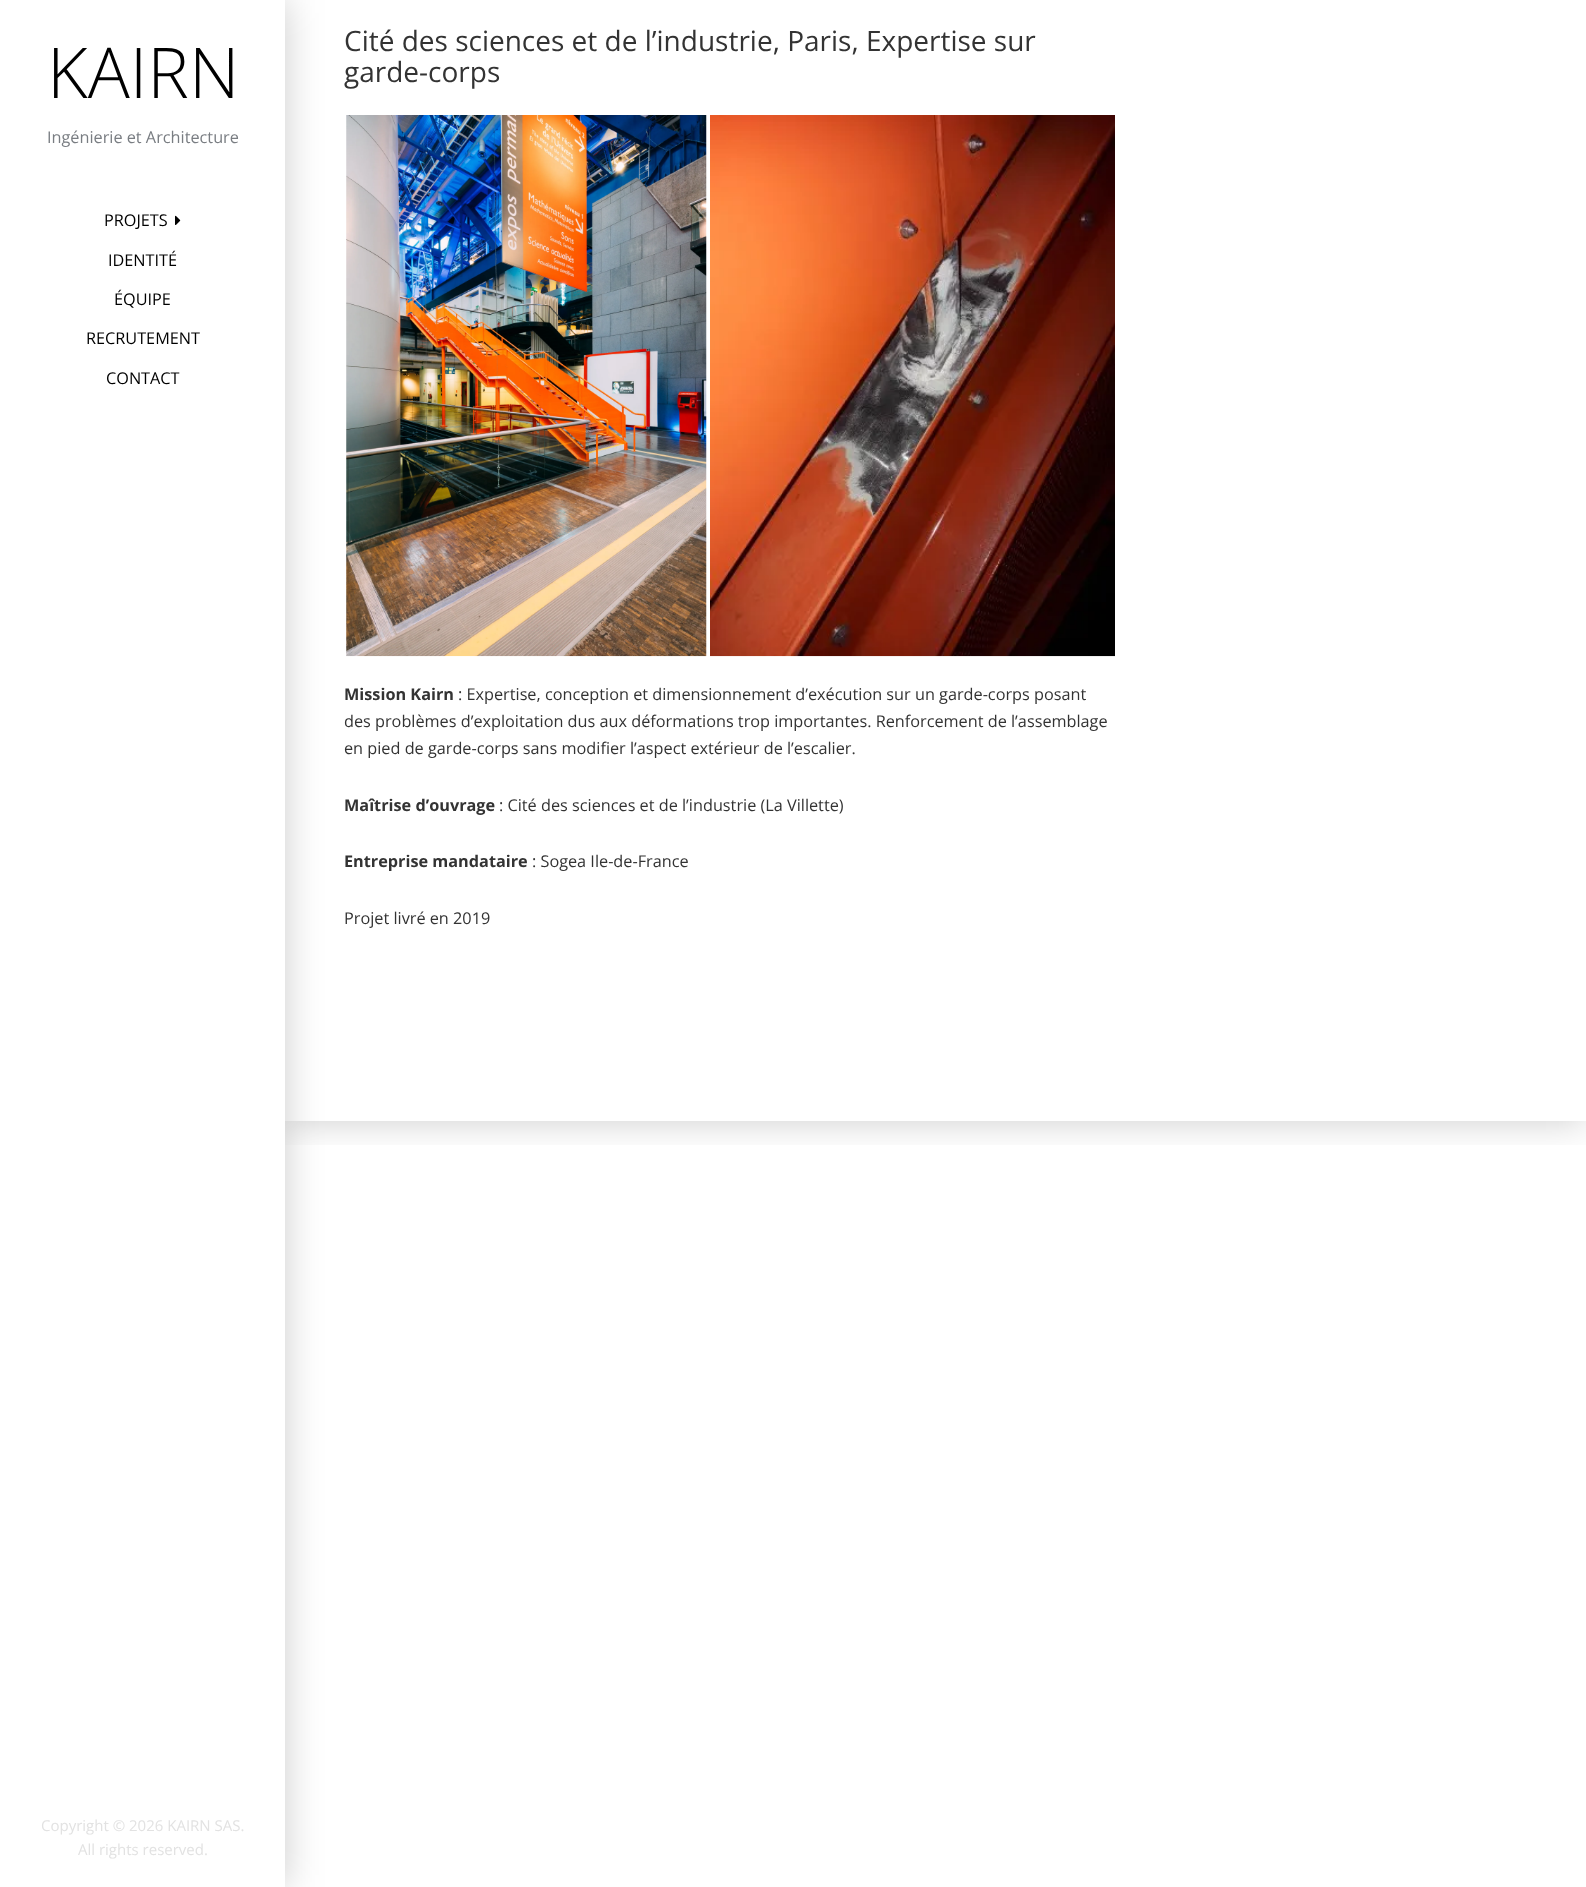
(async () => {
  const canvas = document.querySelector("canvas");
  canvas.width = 1586;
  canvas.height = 1887;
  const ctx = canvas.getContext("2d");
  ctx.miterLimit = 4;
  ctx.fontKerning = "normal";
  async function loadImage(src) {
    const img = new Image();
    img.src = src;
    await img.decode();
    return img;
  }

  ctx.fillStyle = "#ffffff";
  ctx.fillRect(0, 0, 1586, 1887);
  ctx.fillStyle = "rgba(0, 0, 0, 0.2)";
  ctx.filter = "blur(19px)";
  ctx.beginPath();
  ctx.rect(0, 0, 285, 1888);
  ctx.fill();
  ctx.filter = "none";
  ctx.save();
  ctx.beginPath();
  ctx.rect(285, 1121, 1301, 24);
  ctx.clip();
  ctx.filter = "blur(19px)";
  ctx.beginPath();
  ctx.rect(285, 0, 1301, 1121);
  ctx.fill();
  ctx.filter = "none";
  ctx.restore();
  ctx.fillStyle = "#ffffff";
  ctx.fillRect(0, 0, 285, 1887);
  ctx.drawImage(await loadImage("img/1.png"), 175, 215, 6, 10);
  ctx.drawImage(await loadImage("img/2.png"), 346, 115, 361, 542);
  ctx.drawImage(await loadImage("img/3.png"), 710, 115, 405, 542);
  ctx.font = "300 70px Open Sans";
  ctx.fillStyle = "#000000";
  ctx.fillText("KAIRN", 47, 98);
  ctx.font = "16.25px Open Sans";
  ctx.fillStyle = "#797d82";
  ctx.fillText("Ingénierie et Architecture", 47, 143);
  ctx.fillStyle = "#000000";
  for (const [text, x, y] of [
    ["PROJETS", 104, 226],
    ["IDENTITÉ", 108, 266],
    ["ÉQUIPE", 114, 305],
    ["RECRUTEMENT", 86, 344],
    ["CONTACT", 106, 384],
  ]) {
    ctx.fillText(text, x, y);
  }
  ctx.font = "15px Open Sans";
  ctx.fillStyle = "#e2e2e2";
  ctx.fillText("Copyright © 2026 KAIRN SAS.", 41, 1831);
  ctx.fillText("All rights reserved.", 78, 1855);
  ctx.font = "28px Open Sans";
  ctx.fillStyle = "#333333";
  ctx.fillText("Cité des sciences et de l’industrie, Paris, Expertise sur", 344, 51);
  ctx.fillText("garde-corps", 344, 82);
  ctx.font = "bold 16.25px Open Sans";
  ctx.fillText("Mission Kairn", 344, 700);
  ctx.font = "16.25px Open Sans";
  for (const [text, x, y] of [
    [": Expertise, conception et dimensionnement d’exécution sur un garde-corps posant", 458, 700],
    ["des problèmes d’exploitation dus aux déformations trop importantes. Renforcement de l’assemblage", 344, 727],
    ["en pied de garde-corps sans modifier l’aspect extérieur de l’escalier.", 344, 754],
  ]) {
    ctx.fillText(text, x, y);
  }
  ctx.font = "bold 16.25px Open Sans";
  ctx.fillText("Maîtrise d’ouvrage", 344, 811);
  ctx.font = "16.25px Open Sans";
  ctx.fillText(": Cité des sciences et de l’industrie (La Villette)", 499, 811);
  ctx.font = "bold 16.25px Open Sans";
  ctx.fillText("Entreprise mandataire", 344, 867);
  ctx.font = "16.25px Open Sans";
  ctx.fillText(": Sogea Ile-de-France", 532, 867);
  ctx.fillText("Projet livré en 2019", 344, 924);
})();
